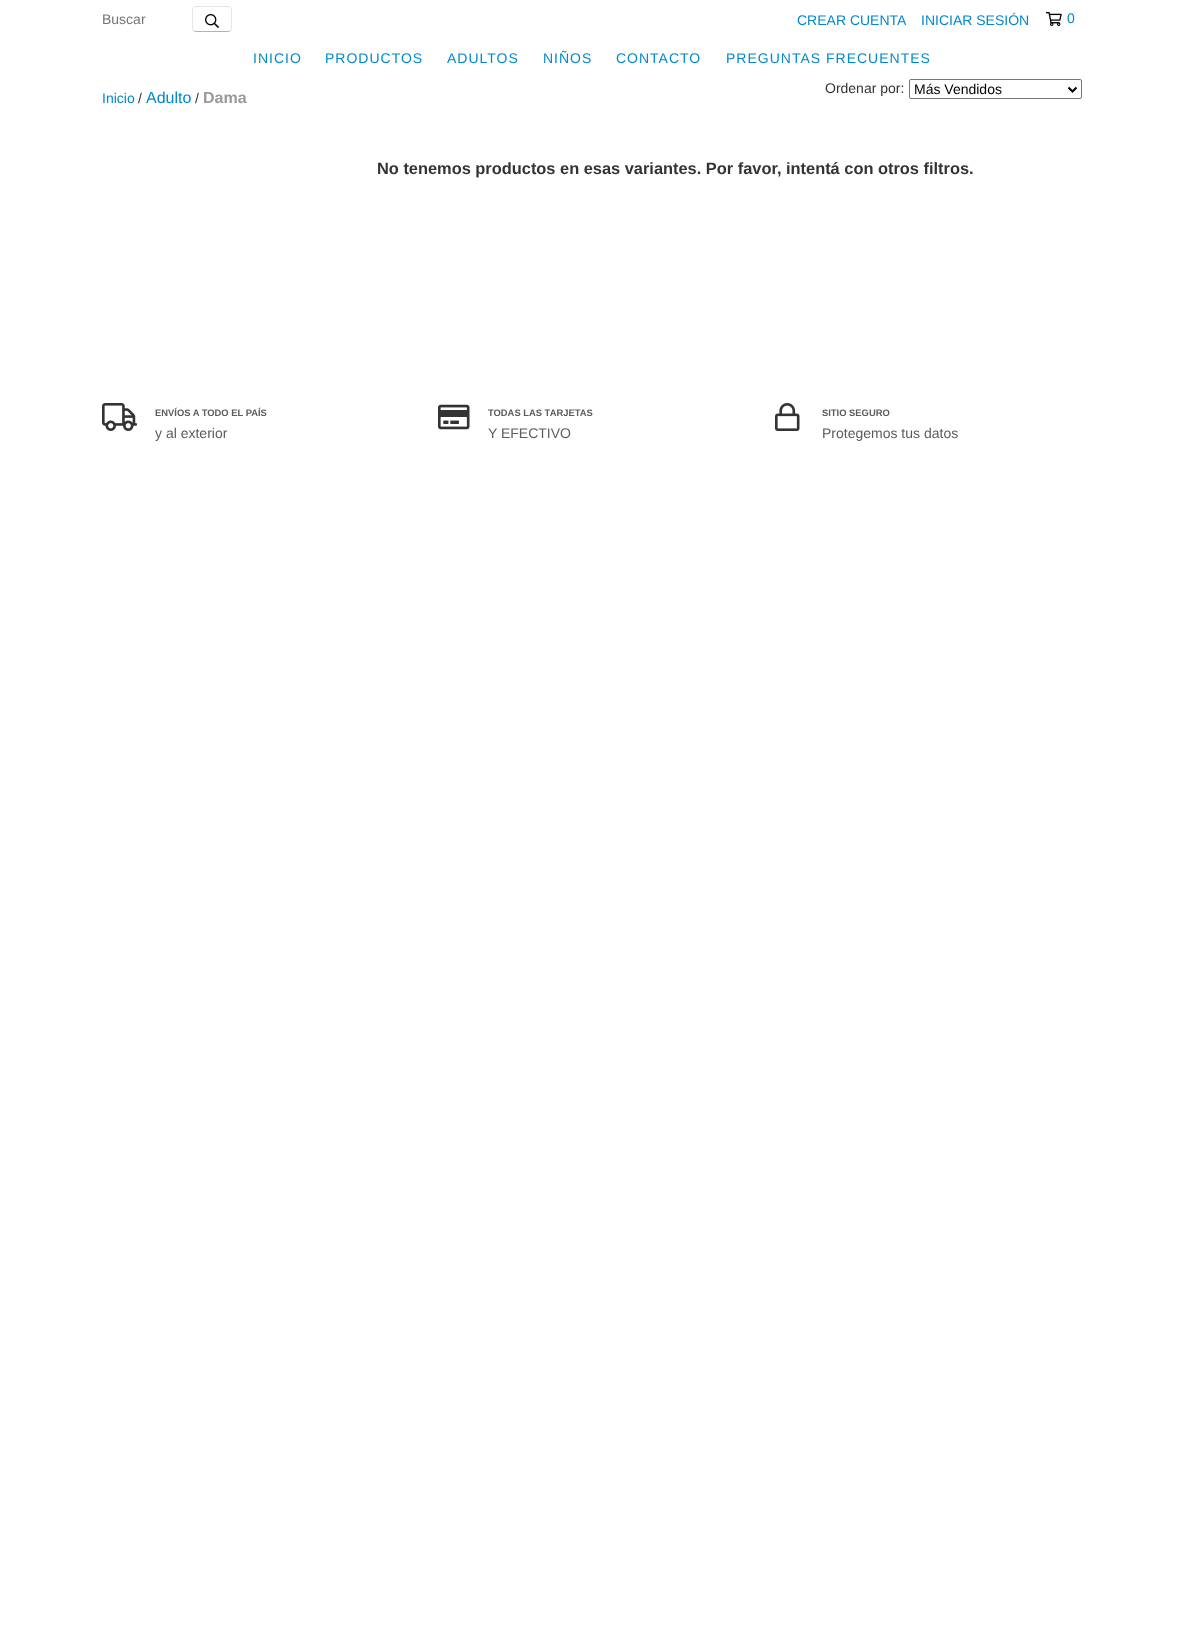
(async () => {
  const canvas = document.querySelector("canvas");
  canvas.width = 1183;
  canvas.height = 1639;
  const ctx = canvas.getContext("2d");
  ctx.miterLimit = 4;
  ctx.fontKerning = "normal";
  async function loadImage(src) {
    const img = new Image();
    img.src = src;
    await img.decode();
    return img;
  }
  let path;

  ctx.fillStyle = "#ffffff";
  ctx.fillRect(0, 0, 1183, 1639);
  path = new Path2D("M230.5 30.5C230 31 229 31.5 228 31.5H196C195 31.5 194 31 193.5 30.5");
  ctx.strokeStyle = "#b3b3b3";
  ctx.stroke(path);
  path = new Path2D("M193.5 30.5C193 30 192.5 29 192.5 28V10C192.5 9 193 8 193.5 7.5C194 7 195 6.5 196 6.5H228C229 6.5 230 7 230.5 7.5C231 8 231.5 9 231.5 10V28C231.5 29 231 30 230.5 30.5");
  ctx.strokeStyle = "rgba(0, 0, 0, 0.1)";
  ctx.stroke(path);
  ctx.drawImage(await loadImage("img/1.png"), 205, 14, 14, 14);
  ctx.drawImage(await loadImage("img/2.png"), 1046, 12, 16, 14);
  ctx.beginPath();
  ctx.roundRect(909.5, 79.5, 172, 19, 1.5);
  ctx.strokeStyle = "#767676";
  ctx.stroke();
  path = new Path2D("M1068.5 87.5L1072.5 91.5L1076.5 87.5");
  ctx.strokeStyle = "#000000";
  ctx.lineWidth = 2;
  ctx.stroke(path);
  ctx.drawImage(await loadImage("img/3.png"), 102, 403, 35, 28);
  ctx.drawImage(await loadImage("img/4.png"), 438, 404, 32, 26);
  ctx.drawImage(await loadImage("img/5.png"), 775, 403, 25, 28);
  ctx.font = "14px Liberation Sans";
  ctx.fillStyle = "#757575";
  ctx.fillText("Buscar", 102, 24);
  ctx.fillStyle = "#0088cc";
  ctx.fillText("CREAR CUENTA", 797, 25);
  ctx.fillText("INICIAR SESIÓN", 921, 25);
  ctx.letterSpacing = "1px";
  for (const [text, x, y] of [
    ["0", 1067, 23],
    ["INICIO", 253, 63],
    ["PRODUCTOS", 325, 63],
    ["ADULTOS", 447, 63],
    ["NIÑOS", 543, 63],
    ["CONTACTO", 616, 63],
    ["PREGUNTAS FRECUENTES", 726, 63],
  ]) {
    ctx.fillText(text, x, y);
  }
  ctx.letterSpacing = "0px";
  ctx.fillStyle = "#333333";
  ctx.fillText("Ordenar por:", 825, 93);
  ctx.fillStyle = "#000000";
  ctx.fillText("Más Vendidos", 914, 94);
  ctx.fillStyle = "#0088cc";
  ctx.fillText("Inicio", 102, 103);
  ctx.fillStyle = "#333333";
  ctx.fillText("/", 138, 103);
  ctx.font = "16px Liberation Sans";
  ctx.fillStyle = "#0088cc";
  ctx.fillText("Adulto", 146, 103);
  ctx.font = "14px Liberation Sans";
  ctx.fillStyle = "#333333";
  ctx.fillText("/", 195, 103);
  ctx.font = "bold 16px Liberation Sans";
  ctx.fillStyle = "#999999";
  ctx.fillText("Dama", 203, 103);
  ctx.font = "bold 16.4px Liberation Sans";
  ctx.fillStyle = "#333333";
  ctx.fillText("No tenemos productos en esas variantes. Por favor, intentá con otros filtros.", 377, 174);
  ctx.font = "bold 9.4px Liberation Sans";
  ctx.fillStyle = "#5c5c5c";
  ctx.fillText("ENVÍOS A TODO EL PAÍS", 155, 416);
  ctx.font = "14px Liberation Sans";
  ctx.fillText("y al exterior", 155, 438);
  ctx.font = "bold 9.4px Liberation Sans";
  ctx.fillText("TODAS LAS TARJETAS", 488, 416);
  ctx.font = "14px Liberation Sans";
  ctx.fillText("Y EFECTIVO", 488, 438);
  ctx.font = "bold 9.4px Liberation Sans";
  ctx.fillText("SITIO SEGURO", 822, 416);
  ctx.font = "14px Liberation Sans";
  ctx.fillText("Protegemos tus datos", 822, 438);
})();
